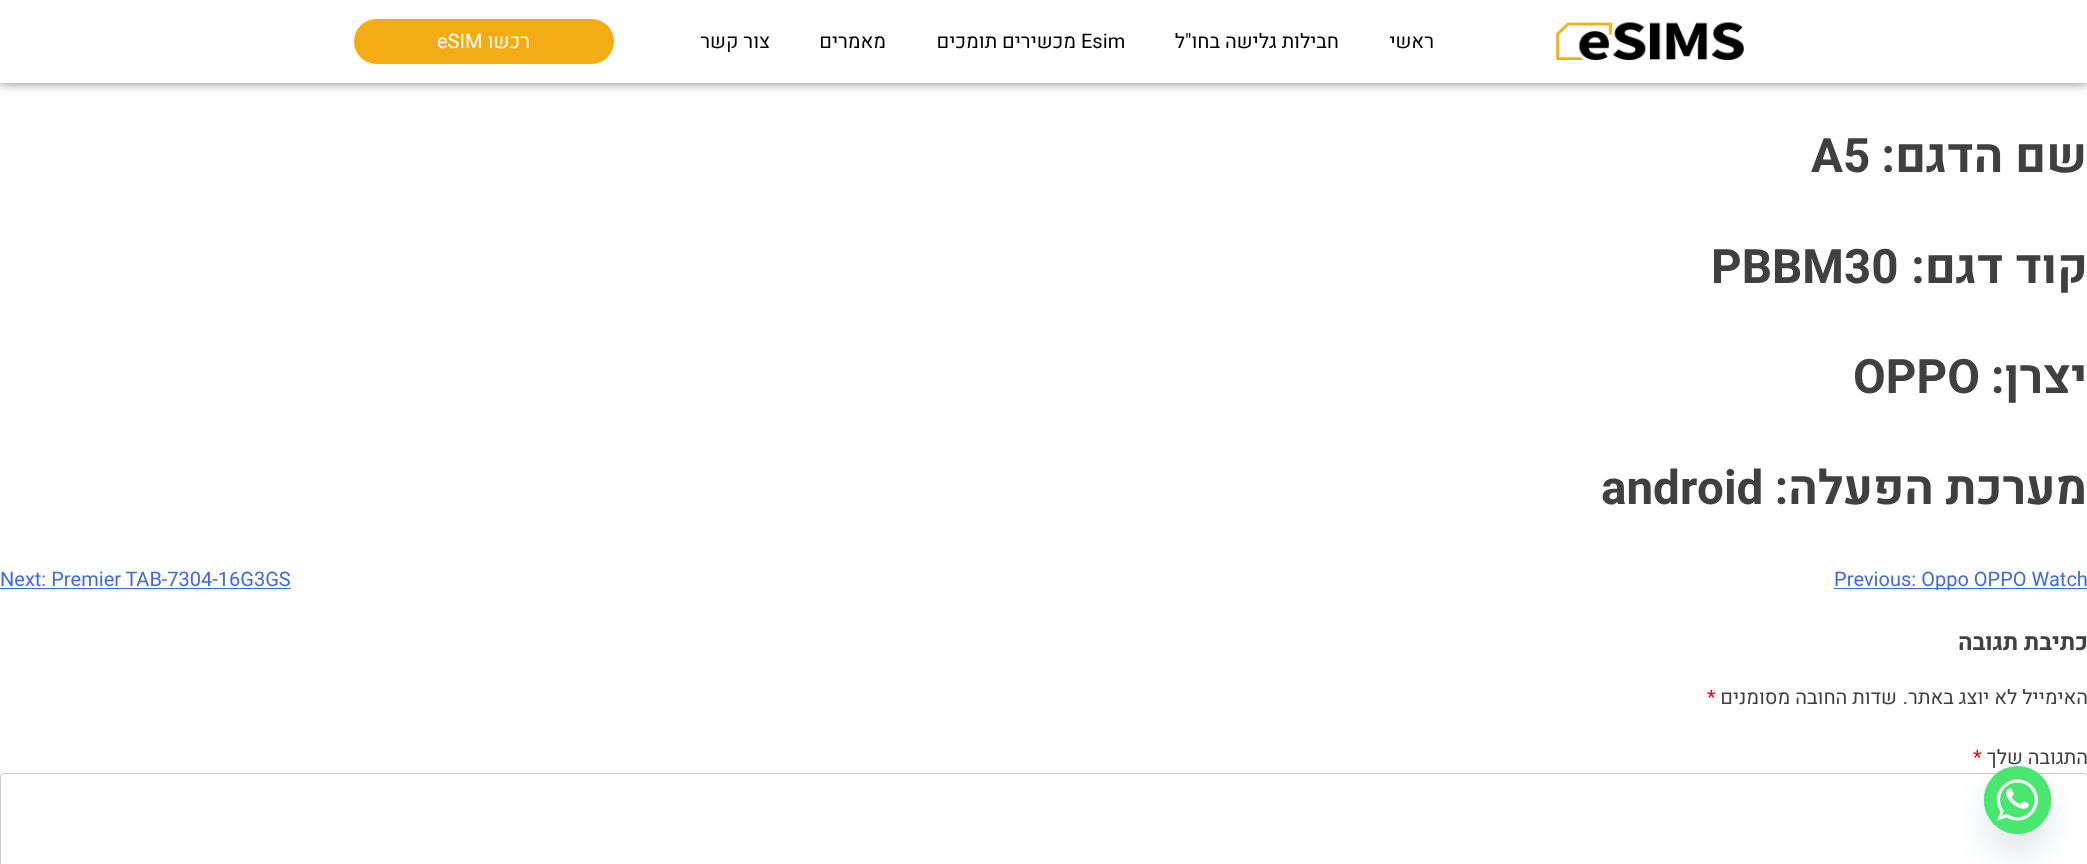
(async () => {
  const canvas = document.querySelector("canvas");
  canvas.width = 2087;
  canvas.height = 864;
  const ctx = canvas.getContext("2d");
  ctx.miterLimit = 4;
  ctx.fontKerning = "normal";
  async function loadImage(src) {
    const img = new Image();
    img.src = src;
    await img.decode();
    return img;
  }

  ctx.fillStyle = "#ffffff";
  ctx.fillRect(0, 0, 2087, 864);
  ctx.fillStyle = "rgba(0, 0, 0, 0.5)";
  ctx.filter = "blur(6px)";
  ctx.beginPath();
  ctx.rect(0, 0, 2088, 83);
  ctx.fill();
  ctx.filter = "none";
  ctx.fillStyle = "#ffffff";
  ctx.fillRect(0, 0, 2087, 83);
  ctx.drawImage(await loadImage("img/1.png"), 1556, 22, 188, 38);
  ctx.fillStyle = "#f3ac14";
  ctx.beginPath();
  ctx.roundRect(354, 19, 260, 45, 22.5);
  ctx.fill();
  ctx.fillStyle = "#4169e1";
  ctx.fillRect(1834, 588, 253, 1);
  ctx.fillRect(0, 588, 291, 1);
  ctx.beginPath();
  ctx.roundRect(0.5, 773.5, 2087, 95, 3.5);
  ctx.strokeStyle = "#cccccc";
  ctx.stroke();
  ctx.fillStyle = "rgba(73, 104, 126, 0.16)";
  ctx.filter = "blur(15px)";
  ctx.beginPath();
  ctx.roundRect(1984, 786, 67, 68, 33.5);
  ctx.fill();
  ctx.filter = "none";
  ctx.direction = "rtl";
  ctx.font = "20px Heebo";
  ctx.fillStyle = "#000000";
  ctx.fillText("ראשי", 1434, 48);
  ctx.fillText("חבילות גלישה בחו\"ל", 1339, 48);
  ctx.direction = "ltr";
  ctx.fillText("Esim", 1081, 48);
  ctx.direction = "rtl";
  for (const [text, x, y] of [
    ["מכשירים תומכים", 1076, 48],
    ["מאמרים", 886, 48],
    ["צור קשר", 770, 48],
  ]) {
    ctx.fillText(text, x, y);
  }
  ctx.fillStyle = "#ffffff";
  ctx.fillText("רכשו", 530, 48);
  ctx.direction = "ltr";
  ctx.fillText("eSIM", 437, 48);
  ctx.direction = "rtl";
  ctx.font = "bold 47.5px Heebo";
  ctx.fillStyle = "#404040";
  ctx.fillText("שם הדגם:", 2087, 172);
  ctx.direction = "ltr";
  ctx.fillText("A5", 1811, 172);
  ctx.direction = "rtl";
  ctx.fillText("קוד דגם:", 2088, 283);
  ctx.direction = "ltr";
  ctx.fillText("PBBM30", 1711, 283);
  ctx.direction = "rtl";
  ctx.fillText("יצרן:", 2087, 393);
  ctx.direction = "ltr";
  ctx.fillText("OPPO", 1853, 393);
  ctx.direction = "rtl";
  ctx.fillText("מערכת הפעלה:", 2087, 504);
  ctx.direction = "ltr";
  ctx.fillText("android", 1601, 504);
  ctx.font = "20px Heebo";
  ctx.fillStyle = "#4169e1";
  ctx.fillText("Previous: Oppo OPPO Watch", 1834, 586);
  ctx.fillText("Next: Premier TAB-7304-16G3GS", 0, 586);
  ctx.direction = "rtl";
  ctx.font = "bold 23.5px Heebo";
  ctx.fillStyle = "#404040";
  ctx.fillText("כתיבת תגובה", 2088, 650);
  ctx.font = "20px Heebo";
  ctx.fillText("האימייל לא יוצג באתר.", 2088, 704);
  ctx.fillText("שדות החובה מסומנים", 1897, 704);
  ctx.direction = "ltr";
  ctx.fillStyle = "#ff0000";
  ctx.fillText("*", 1707, 704);
  ctx.direction = "rtl";
  ctx.fillStyle = "#404040";
  ctx.fillText("התגובה שלך", 2088, 764);
  ctx.direction = "ltr";
  ctx.fillStyle = "#ff0000";
  ctx.fillText("*", 1973, 764);
  ctx.fillStyle = "#49e670";
  ctx.beginPath();
  ctx.roundRect(1984, 766, 67, 68, 33.5);
  ctx.fill();
  ctx.drawImage(await loadImage("img/2.png"), 1984, 766, 67, 68);
})();
